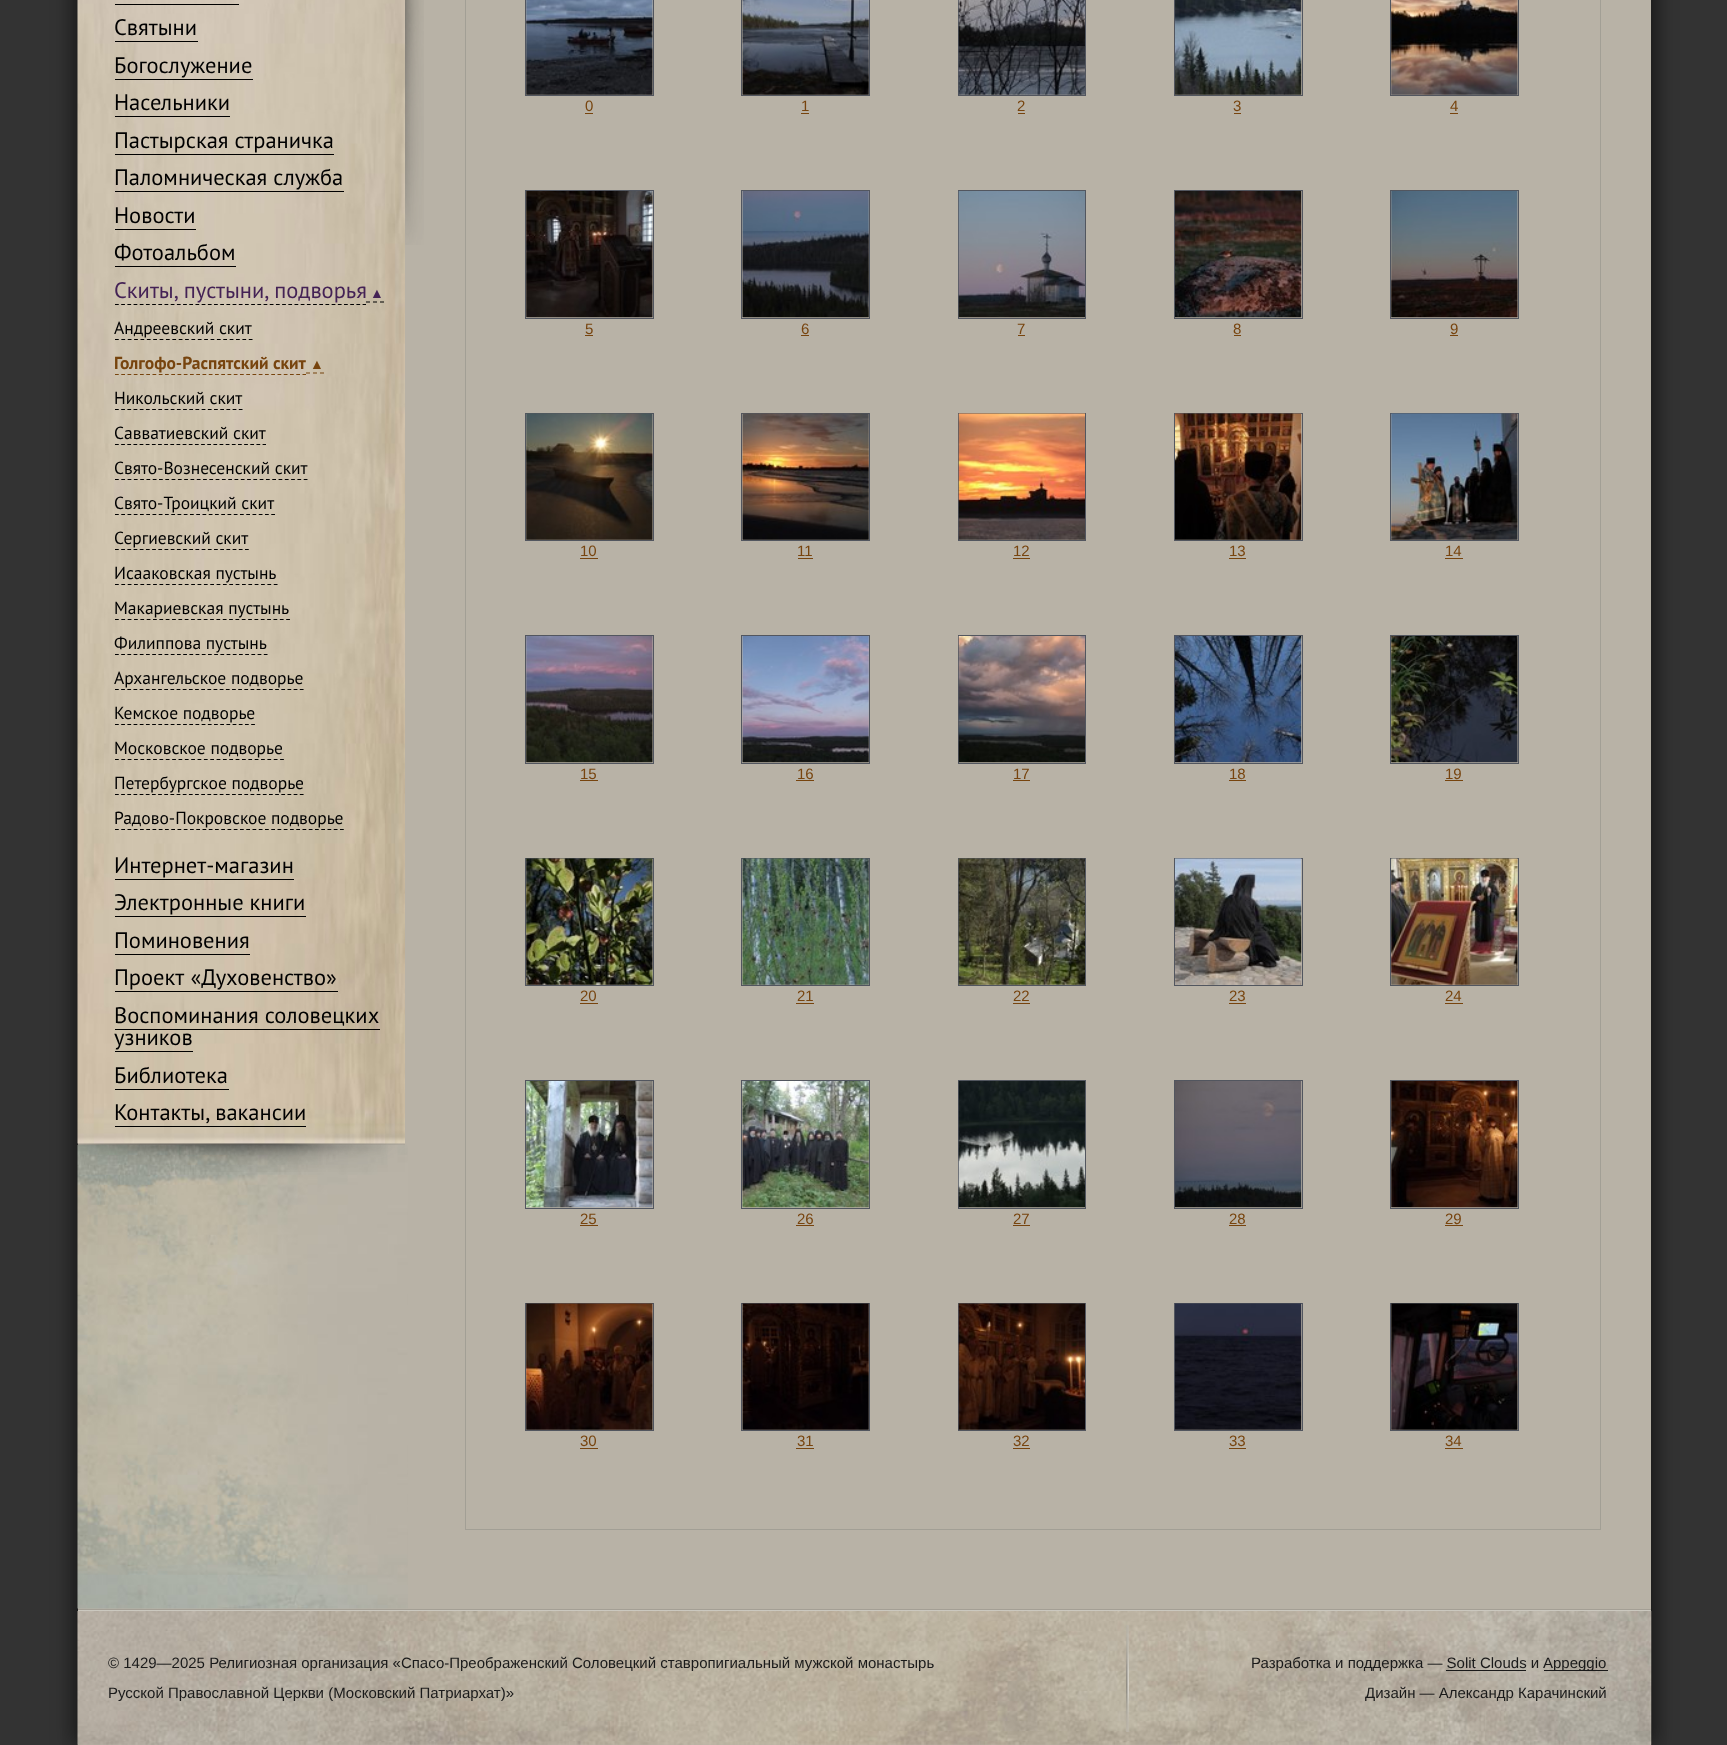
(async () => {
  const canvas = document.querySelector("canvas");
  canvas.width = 1727;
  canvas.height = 1745;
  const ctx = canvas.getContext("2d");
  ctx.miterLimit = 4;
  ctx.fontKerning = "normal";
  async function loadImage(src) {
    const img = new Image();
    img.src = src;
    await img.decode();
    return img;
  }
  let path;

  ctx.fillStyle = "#333333";
  ctx.fillRect(0, 0, 1727, 1745);
  ctx.fillStyle = "rgba(0, 0, 0, 0.4)";
  ctx.filter = "blur(9.5px)";
  ctx.beginPath();
  ctx.rect(71, -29, 1574, 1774);
  ctx.fill();
  ctx.filter = "none";
  ctx.filter = "blur(9.5px)";
  ctx.beginPath();
  ctx.rect(84, -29, 1574, 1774);
  ctx.fill();
  ctx.filter = "none";
  ctx.fillStyle = "#b8b2a6";
  ctx.fillRect(78, 0, 1573, 1745);
  ctx.drawImage(await loadImage("img/1.png"), 77, 1144, 331, 465);
  ctx.drawImage(await loadImage("img/2.png"), 405, 0, 19, 245);
  ctx.drawImage(await loadImage("img/3.png"), 77, 0, 328, 1144);
  for (const [x, y, w, h, color] of [
    [115, 4, 124, 1, "#000000"],
    [115, 41, 83, 1, "#000000"],
    [115, 79, 138, 1, "#000000"],
    [115, 116, 115, 1, "#000000"],
    [115, 154, 219, 1, "#000000"],
    [115, 191, 229, 1, "#000000"],
    [115, 229, 81, 1, "#000000"],
    [115, 266, 121, 1, "#000000"],
  ]) {
    ctx.fillStyle = color;
    ctx.fillRect(x, y, w, h);
  }
  path = new Path2D("M115 304.5H366");
  ctx.strokeStyle = "#000000";
  ctx.lineWidth = 1.2;
  ctx.setLineDash([3.75, 2.44]);
  ctx.stroke(path);
  path = new Path2D("M366 302H370M373 302H377M380 302H384");
  ctx.setLineDash([]);
  ctx.stroke(path);
  path = new Path2D("M115 339.5H252.5");
  ctx.setLineDash([3.75, 2.62]);
  ctx.stroke(path);
  path = new Path2D("M115 374.5H306");
  ctx.strokeStyle = "#77440e";
  ctx.setLineDash([3.75, 2.5]);
  ctx.stroke(path);
  path = new Path2D("M306 373H310M313 373H317M320 373H324");
  ctx.setLineDash([]);
  ctx.stroke(path);
  path = new Path2D("M115 409.5H242.5");
  ctx.strokeStyle = "#000000";
  ctx.setLineDash([3.75, 2.44]);
  ctx.stroke(path);
  path = new Path2D("M115 444.5H266");
  ctx.setLineDash([3.75, 2.4]);
  ctx.stroke(path);
  path = new Path2D("M115 479.5H307.5");
  ctx.setLineDash([3.75, 2.54]);
  ctx.stroke(path);
  path = new Path2D("M115 514.5H275");
  ctx.setLineDash([3.75, 2.5]);
  ctx.stroke(path);
  path = new Path2D("M115 549.5H249");
  ctx.setLineDash([3.75, 2.44]);
  ctx.stroke(path);
  path = new Path2D("M115 584.5H277.5");
  ctx.setLineDash([3.75, 2.6]);
  ctx.stroke(path);
  path = new Path2D("M115 619.5H290");
  ctx.setLineDash([3.75, 2.59]);
  ctx.stroke(path);
  path = new Path2D("M115 654.5H267.5");
  ctx.setLineDash([3.75, 2.45]);
  ctx.stroke(path);
  path = new Path2D("M115 689.5H304");
  ctx.setLineDash([3.75, 2.41]);
  ctx.stroke(path);
  path = new Path2D("M115 724.5H255");
  ctx.setLineDash([3.75, 2.44]);
  ctx.stroke(path);
  path = new Path2D("M115 759.5H284");
  ctx.setLineDash([3.75, 2.6]);
  ctx.stroke(path);
  path = new Path2D("M115 794.5H304");
  ctx.setLineDash([3.75, 2.41]);
  ctx.stroke(path);
  path = new Path2D("M115 829.5H344");
  ctx.setLineDash([3.75, 2.5]);
  ctx.stroke(path);
  for (const [x, y, w, h, color] of [
    [115, 879, 179, 1, "#000000"],
    [115, 916, 191, 1, "#000000"],
    [115, 954, 135, 1, "#000000"],
    [115, 991, 223, 1, "#000000"],
    [115, 1029, 265, 1, "#000000"],
    [115, 1051, 78, 1, "#000000"],
    [115, 1089, 114, 1, "#000000"],
    [115, 1126, 191, 1, "#000000"],
  ]) {
    ctx.fillStyle = color;
    ctx.fillRect(x, y, w, h);
  }
  ctx.drawImage(await loadImage("img/4.png"), 78, 1143, 327, 29);
  ctx.strokeStyle = "#a29f95";
  ctx.lineWidth = 1;
  ctx.setLineDash([]);
  ctx.strokeRect(465.5, -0.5, 1135, 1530);
  ctx.strokeStyle = "#52565f";
  ctx.strokeRect(525.5, -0.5, 128, 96);
  ctx.drawImage(await loadImage("img/5.png"), 526, 0, 127, 95);
  ctx.fillStyle = "#77440e";
  ctx.fillRect(585, 113, 8, 1);
  ctx.strokeRect(741.5, -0.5, 128, 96);
  ctx.drawImage(await loadImage("img/6.png"), 742, 0, 127, 95);
  ctx.fillRect(801, 113, 8, 1);
  ctx.strokeRect(958.5, -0.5, 127, 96);
  ctx.drawImage(await loadImage("img/7.png"), 958, 0, 127, 95);
  ctx.fillRect(1018, 113, 7, 1);
  ctx.strokeRect(1174.5, -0.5, 128, 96);
  ctx.drawImage(await loadImage("img/8.png"), 1175, 0, 127, 95);
  ctx.fillRect(1234, 113, 7, 1);
  ctx.strokeRect(1390.5, -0.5, 128, 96);
  ctx.drawImage(await loadImage("img/9.png"), 1391, 0, 127, 95);
  ctx.fillRect(1450, 113, 8, 1);
  ctx.strokeRect(525.5, 190.5, 128, 128);
  ctx.drawImage(await loadImage("img/10.png"), 526, 191, 127, 127);
  ctx.fillRect(585, 335, 8, 1);
  ctx.strokeRect(741.5, 190.5, 128, 128);
  ctx.drawImage(await loadImage("img/11.png"), 742, 191, 127, 127);
  ctx.fillRect(801, 335, 8, 1);
  ctx.strokeRect(958.5, 190.5, 127, 128);
  ctx.drawImage(await loadImage("img/12.png"), 958, 191, 127, 127);
  ctx.fillRect(1018, 335, 7, 1);
  ctx.strokeRect(1174.5, 190.5, 128, 128);
  ctx.drawImage(await loadImage("img/13.png"), 1175, 191, 127, 127);
  ctx.fillRect(1234, 335, 7, 1);
  ctx.strokeRect(1390.5, 190.5, 128, 128);
  ctx.drawImage(await loadImage("img/14.png"), 1391, 191, 127, 127);
  ctx.fillRect(1450, 335, 8, 1);
  ctx.strokeRect(525.5, 413.5, 128, 127);
  ctx.drawImage(await loadImage("img/15.png"), 526, 413, 127, 127);
  ctx.fillRect(580, 558, 18, 1);
  ctx.strokeRect(741.5, 413.5, 128, 127);
  ctx.drawImage(await loadImage("img/16.png"), 742, 413, 127, 127);
  ctx.fillRect(798, 558, 15, 1);
  ctx.strokeRect(958.5, 413.5, 127, 127);
  ctx.drawImage(await loadImage("img/17.png"), 958, 413, 127, 127);
  ctx.fillRect(1013, 558, 17, 1);
  ctx.strokeRect(1174.5, 413.5, 128, 127);
  ctx.drawImage(await loadImage("img/18.png"), 1175, 413, 127, 127);
  ctx.fillRect(1229, 558, 17, 1);
  ctx.strokeRect(1390.5, 413.5, 128, 127);
  ctx.drawImage(await loadImage("img/19.png"), 1391, 413, 127, 127);
  ctx.fillRect(1445, 558, 18, 1);
  ctx.strokeRect(525.5, 635.5, 128, 128);
  ctx.drawImage(await loadImage("img/20.png"), 526, 636, 127, 127);
  ctx.fillRect(580, 780, 18, 1);
  ctx.strokeRect(741.5, 635.5, 128, 128);
  ctx.drawImage(await loadImage("img/21.png"), 742, 636, 127, 127);
  ctx.fillRect(796, 780, 18, 1);
  ctx.strokeRect(958.5, 635.5, 127, 128);
  ctx.drawImage(await loadImage("img/22.png"), 958, 636, 127, 127);
  ctx.fillRect(1013, 780, 17, 1);
  ctx.strokeRect(1174.5, 635.5, 128, 128);
  ctx.drawImage(await loadImage("img/23.png"), 1175, 636, 127, 127);
  ctx.fillRect(1229, 780, 17, 1);
  ctx.strokeRect(1390.5, 635.5, 128, 128);
  ctx.drawImage(await loadImage("img/24.png"), 1391, 636, 127, 127);
  ctx.fillRect(1445, 780, 18, 1);
  ctx.strokeRect(525.5, 858.5, 128, 127);
  ctx.drawImage(await loadImage("img/25.png"), 526, 858, 127, 127);
  ctx.fillRect(580, 1003, 18, 1);
  ctx.strokeRect(741.5, 858.5, 128, 127);
  ctx.drawImage(await loadImage("img/26.png"), 742, 858, 127, 127);
  ctx.fillRect(796, 1003, 18, 1);
  ctx.strokeRect(958.5, 858.5, 127, 127);
  ctx.drawImage(await loadImage("img/27.png"), 958, 858, 127, 127);
  ctx.fillRect(1013, 1003, 17, 1);
  ctx.strokeRect(1174.5, 858.5, 128, 127);
  ctx.drawImage(await loadImage("img/28.png"), 1175, 858, 127, 127);
  ctx.fillRect(1229, 1003, 17, 1);
  ctx.strokeRect(1390.5, 858.5, 128, 127);
  ctx.drawImage(await loadImage("img/29.png"), 1391, 858, 127, 127);
  ctx.fillRect(1445, 1003, 18, 1);
  ctx.strokeRect(525.5, 1080.5, 128, 128);
  ctx.drawImage(await loadImage("img/30.png"), 526, 1081, 127, 127);
  ctx.fillRect(580, 1225, 18, 1);
  ctx.strokeRect(741.5, 1080.5, 128, 128);
  ctx.drawImage(await loadImage("img/31.png"), 742, 1081, 127, 127);
  ctx.fillRect(796, 1225, 18, 1);
  ctx.strokeRect(958.5, 1080.5, 127, 128);
  ctx.drawImage(await loadImage("img/32.png"), 958, 1081, 127, 127);
  ctx.fillRect(1013, 1225, 17, 1);
  ctx.strokeRect(1174.5, 1080.5, 128, 128);
  ctx.drawImage(await loadImage("img/33.png"), 1175, 1081, 127, 127);
  ctx.fillRect(1229, 1225, 17, 1);
  ctx.strokeRect(1390.5, 1080.5, 128, 128);
  ctx.drawImage(await loadImage("img/34.png"), 1391, 1081, 127, 127);
  ctx.fillRect(1445, 1225, 18, 1);
  ctx.strokeRect(525.5, 1303.5, 128, 127);
  ctx.drawImage(await loadImage("img/35.png"), 526, 1303, 127, 127);
  ctx.fillRect(580, 1448, 18, 1);
  ctx.strokeRect(741.5, 1303.5, 128, 127);
  ctx.drawImage(await loadImage("img/36.png"), 742, 1303, 127, 127);
  ctx.fillRect(796, 1448, 18, 1);
  ctx.strokeRect(958.5, 1303.5, 127, 127);
  ctx.drawImage(await loadImage("img/37.png"), 958, 1303, 127, 127);
  ctx.fillRect(1013, 1448, 17, 1);
  ctx.strokeRect(1174.5, 1303.5, 128, 127);
  ctx.drawImage(await loadImage("img/38.png"), 1175, 1303, 127, 127);
  ctx.fillRect(1229, 1448, 17, 1);
  ctx.strokeRect(1390.5, 1303.5, 128, 127);
  ctx.drawImage(await loadImage("img/39.png"), 1391, 1303, 127, 127);
  for (const [x, y, w, h, color] of [
    [1445, 1448, 18, 1, "#77440e"],
    [78, 1610, 1573, 1, "#cbc8bf"],
    [78, 1609, 1573, 1, "#a49f95"],
  ]) {
    ctx.fillStyle = color;
    ctx.fillRect(x, y, w, h);
  }
  ctx.drawImage(await loadImage("img/40.png"), 77, 1611, 1575, 134);
  ctx.drawImage(await loadImage("img/41.png"), 1126, 1625, 3, 107);
  ctx.fillStyle = "#1a1a1a";
  ctx.fillRect(1544, 1670, 64, 1);
  ctx.fillRect(1446, 1670, 80, 1);
  ctx.font = "22.5px PT Sans";
  ctx.fillStyle = "#000000";
  for (const [text, x, y] of [
    ["Святыни", 114, 35],
    ["Богослужение", 114, 73],
    ["Насельники", 114, 110],
    ["Пастырская страничка", 114, 148],
    ["Паломническая служба", 114, 185],
    ["Новости", 114, 223],
    ["Фотоальбом", 114, 260],
  ]) {
    ctx.fillText(text, x, y);
  }
  ctx.wordSpacing = "-1px";
  ctx.fillStyle = "#442255";
  ctx.fillText("Скиты, пустыни, подворья", 114, 298);
  ctx.wordSpacing = "0px";
  ctx.font = "14px Liberation Sans";
  ctx.fillText("▲", 370, 298);
  ctx.font = "17.5px PT Sans";
  ctx.fillStyle = "#000000";
  ctx.fillText("Андреевский скит", 114, 334);
  ctx.font = "bold 17.5px PT Sans";
  ctx.fillStyle = "#77440e";
  ctx.fillText("Голгофо-Распятский скит", 114, 369);
  ctx.font = "bold 14px Liberation Sans";
  ctx.fillText("▲", 310, 369);
  ctx.font = "17.5px PT Sans";
  ctx.fillStyle = "#000000";
  for (const [text, x, y] of [
    ["Никольский скит", 114, 404],
    ["Савватиевский скит", 114, 439],
    ["Свято-Вознесенский скит", 114, 474],
    ["Свято-Троицкий скит", 114, 509],
    ["Сергиевский скит", 114, 544],
    ["Исааковская пустынь", 114, 579],
    ["Макариевская пустынь", 114, 614],
    ["Филиппова пустынь", 114, 649],
    ["Архангельское подворье", 114, 684],
    ["Кемское подворье", 114, 719],
    ["Московское подворье", 114, 754],
    ["Петербургское подворье", 114, 789],
    ["Радово-Покровское подворье", 114, 824],
  ]) {
    ctx.fillText(text, x, y);
  }
  ctx.font = "22.5px PT Sans";
  for (const [text, x, y] of [
    ["Интернет-магазин", 114, 873],
    ["Электронные книги", 114, 910],
    ["Поминовения", 114, 948],
  ]) {
    ctx.fillText(text, x, y);
  }
  ctx.wordSpacing = "1px";
  ctx.fillText("Проект «Духовенство»", 114, 985);
  ctx.wordSpacing = "0px";
  for (const [text, x, y] of [
    ["Воспоминания соловецких", 114, 1023],
    ["узников", 114, 1045],
    ["Библиотека", 114, 1083],
  ]) {
    ctx.fillText(text, x, y);
  }
  ctx.wordSpacing = "-1px";
  ctx.fillText("Контакты, вакансии", 114, 1120);
  ctx.wordSpacing = "0px";
  ctx.font = "15px Liberation Sans";
  ctx.fillStyle = "#77440e";
  for (const [text, x, y] of [
    ["0", 585, 111],
    ["1", 801, 111],
    ["2", 1017, 111],
    ["3", 1233, 111],
    ["4", 1450, 111],
    ["5", 585, 334],
    ["6", 801, 334],
    ["7", 1017, 334],
    ["8", 1233, 334],
    ["9", 1450, 334],
    ["10", 580, 556],
    ["11", 797, 556],
    ["12", 1013, 556],
    ["13", 1229, 556],
    ["14", 1445, 556],
    ["15", 580, 779],
    ["16", 797, 779],
    ["17", 1013, 779],
    ["18", 1229, 779],
    ["19", 1445, 779],
    ["20", 580, 1001],
    ["21", 797, 1001],
    ["22", 1013, 1001],
    ["23", 1229, 1001],
    ["24", 1445, 1001],
    ["25", 580, 1224],
    ["26", 797, 1224],
    ["27", 1013, 1224],
    ["28", 1229, 1224],
    ["29", 1445, 1224],
    ["30", 580, 1446],
    ["31", 797, 1446],
    ["32", 1013, 1446],
    ["33", 1229, 1446],
    ["34", 1445, 1446],
  ]) {
    ctx.fillText(text, x, y);
  }
  ctx.fillStyle = "#1a1a1a";
  for (const [text, x, y] of [
    ["© 1429—2025 Религиозная организация «Спасо-Преображенский Соловецкий ставропигиальный мужской монастырь", 108, 1668],
    ["Русской Православной Церкви (Московский Патриархат)»", 108, 1698],
    ["Разработка и поддержка — Solit Clouds и", 1251, 1668],
    ["Appeggio", 1543, 1668],
    ["Дизайн — Александр Карачинский", 1365, 1698],
  ]) {
    ctx.fillText(text, x, y);
  }
})();
